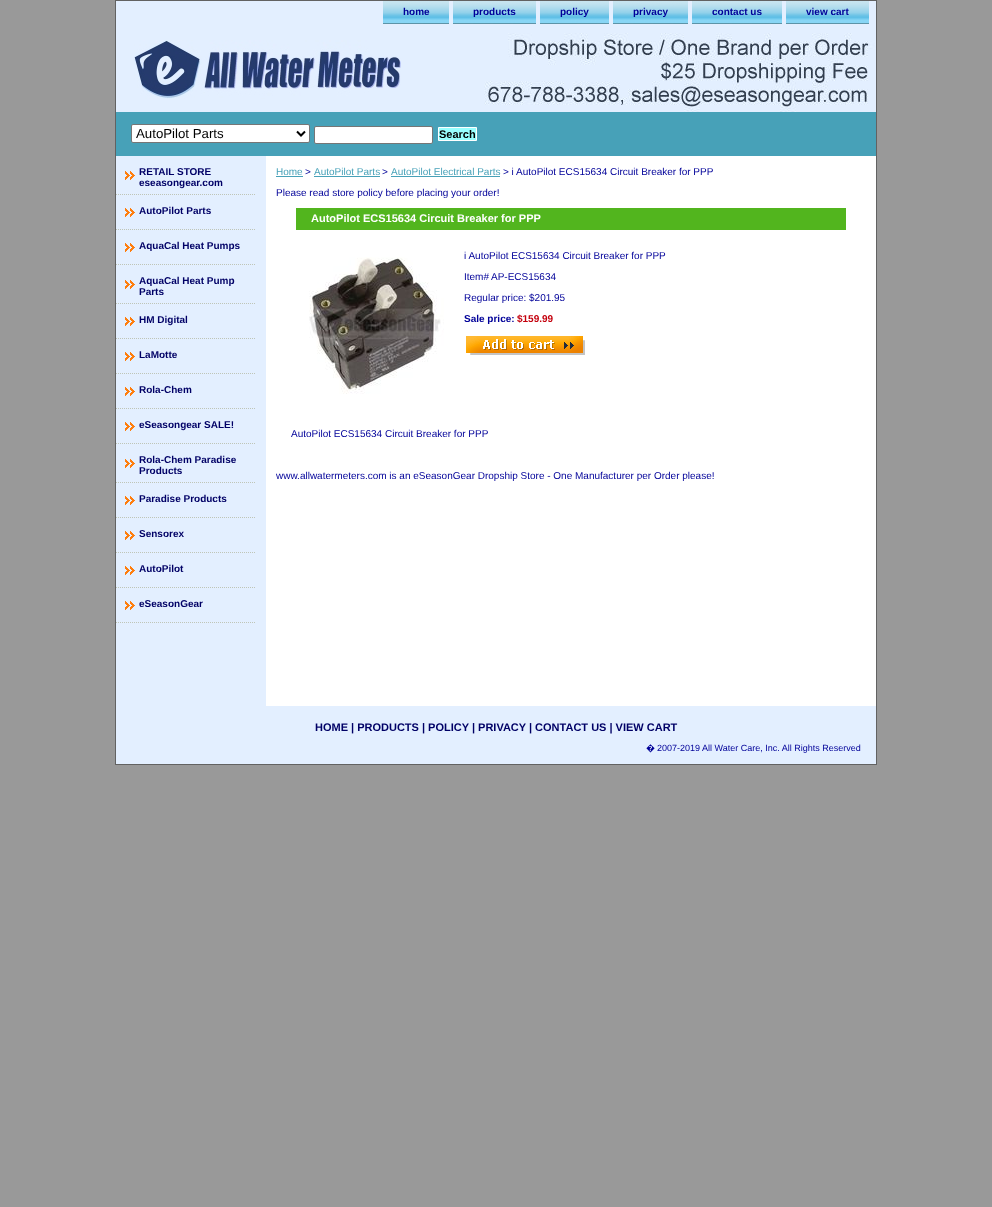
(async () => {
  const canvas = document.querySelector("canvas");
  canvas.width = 992;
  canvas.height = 1207;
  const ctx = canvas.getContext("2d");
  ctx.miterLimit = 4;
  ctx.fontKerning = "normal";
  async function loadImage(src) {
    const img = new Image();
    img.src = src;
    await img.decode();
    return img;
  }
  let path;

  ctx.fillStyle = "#999999";
  ctx.fillRect(0, 0, 992, 1207);
  ctx.strokeStyle = "#626262";
  ctx.strokeRect(115.5, 0.5, 761, 764);
  ctx.drawImage(await loadImage("img/1.png"), 116, 1, 760, 111);
  ctx.drawImage(await loadImage("img/2.png"), 383, 1, 66, 23);
  ctx.drawImage(await loadImage("img/3.png"), 453, 1, 83, 23);
  ctx.drawImage(await loadImage("img/4.png"), 540, 1, 69, 23);
  ctx.drawImage(await loadImage("img/5.png"), 613, 1, 75, 23);
  ctx.drawImage(await loadImage("img/6.png"), 692, 1, 90, 23);
  ctx.drawImage(await loadImage("img/3.png"), 786, 1, 83, 23);
  ctx.drawImage(await loadImage("img/7.png"), 134, 40, 267, 59);
  ctx.fillStyle = "#47a1b8";
  ctx.fillRect(116, 112, 760, 44);
  ctx.fillStyle = "#ffffff";
  ctx.beginPath();
  ctx.roundRect(131.5, 124.5, 178, 18, 1.5);
  ctx.fill();
  ctx.strokeStyle = "#767676";
  ctx.stroke();
  path = new Path2D("M297 131.5L301 135.5L305 131.5");
  ctx.strokeStyle = "#000000";
  ctx.lineWidth = 2;
  ctx.stroke(path);
  ctx.beginPath();
  ctx.roundRect(314.5, 126.5, 118, 17, 1.5);
  ctx.fill();
  ctx.strokeStyle = "#767676";
  ctx.lineWidth = 1;
  ctx.stroke();
  ctx.fillStyle = "#99ffff";
  ctx.beginPath();
  ctx.rect(438.5, 127.5, 38, 13);
  ctx.fill();
  ctx.strokeStyle = "#ffffff";
  ctx.stroke();
  ctx.fillStyle = "#ffffff";
  ctx.fillRect(266, 156, 610, 550);
  ctx.fillStyle = "#e3efff";
  ctx.fillRect(116, 156, 150, 550);
  ctx.drawImage(await loadImage("img/8.png"), 125, 171, 10, 9);
  path = new Path2D("M116 194.5H256");
  ctx.strokeStyle = "#bfc5b7";
  ctx.setLineDash([1, 1]);
  ctx.stroke(path);
  ctx.drawImage(await loadImage("img/8.png"), 125, 208, 10, 9);
  path = new Path2D("M116 229.5H256");
  ctx.stroke(path);
  ctx.drawImage(await loadImage("img/8.png"), 125, 243, 10, 9);
  path = new Path2D("M116 264.5H256");
  ctx.stroke(path);
  ctx.drawImage(await loadImage("img/8.png"), 125, 280, 10, 9);
  path = new Path2D("M116 303.5H256");
  ctx.stroke(path);
  ctx.drawImage(await loadImage("img/8.png"), 125, 317, 10, 9);
  path = new Path2D("M116 338.5H256");
  ctx.stroke(path);
  ctx.drawImage(await loadImage("img/8.png"), 125, 352, 10, 9);
  path = new Path2D("M116 373.5H256");
  ctx.stroke(path);
  ctx.drawImage(await loadImage("img/8.png"), 125, 387, 10, 9);
  path = new Path2D("M116 408.5H256");
  ctx.stroke(path);
  ctx.drawImage(await loadImage("img/8.png"), 125, 422, 10, 9);
  path = new Path2D("M116 443.5H256");
  ctx.stroke(path);
  ctx.drawImage(await loadImage("img/8.png"), 125, 459, 10, 9);
  path = new Path2D("M116 482.5H256");
  ctx.stroke(path);
  ctx.drawImage(await loadImage("img/8.png"), 125, 496, 10, 9);
  path = new Path2D("M116 517.5H256");
  ctx.stroke(path);
  ctx.drawImage(await loadImage("img/8.png"), 125, 531, 10, 9);
  path = new Path2D("M116 552.5H256");
  ctx.stroke(path);
  ctx.drawImage(await loadImage("img/8.png"), 125, 566, 10, 9);
  path = new Path2D("M116 587.5H256");
  ctx.stroke(path);
  ctx.drawImage(await loadImage("img/8.png"), 125, 601, 10, 9);
  path = new Path2D("M116 622.5H256");
  ctx.stroke(path);
  for (const [x, y, w, h, color] of [
    [276, 176, 27, 1, "#47a1b8"],
    [314, 176, 66, 1, "#47a1b8"],
    [391, 176, 109, 1, "#47a1b8"],
    [296, 208, 550, 22, "#52b51e"],
  ]) {
    ctx.fillStyle = color;
    ctx.fillRect(x, y, w, h);
  }
  ctx.drawImage(await loadImage("img/9.png"), 309, 257, 135, 137);
  ctx.drawImage(await loadImage("img/10.png"), 466, 336, 119, 19);
  ctx.fillStyle = "#e3efff";
  ctx.fillRect(116, 706, 760, 58);
  ctx.font = "bold 10px Liberation Sans";
  ctx.fillStyle = "#000099";
  for (const [text, x, y] of [
    ["home", 403, 15],
    ["products", 473, 15],
    ["policy", 560, 15],
    ["privacy", 633, 15],
    ["contact us", 712, 15],
    ["view cart", 806, 15],
  ]) {
    ctx.fillText(text, x, y);
  }
  ctx.font = "13.25px Liberation Sans";
  ctx.fillStyle = "#000000";
  ctx.fillText("AutoPilot Parts", 136, 138);
  ctx.font = "bold 11px Liberation Sans";
  ctx.fillText("Search", 439, 138);
  ctx.font = "bold 10px Liberation Sans";
  ctx.fillStyle = "#000066";
  for (const [text, x, y] of [
    ["RETAIL STORE", 139, 175],
    ["eseasongear.com", 139, 186],
    ["AutoPilot Parts", 139, 214],
    ["AquaCal Heat Pumps", 139, 249],
    ["AquaCal Heat Pump", 139, 284],
    ["Parts", 139, 295],
    ["HM Digital", 139, 323],
    ["LaMotte", 139, 358],
    ["Rola-Chem", 139, 393],
    ["eSeasongear SALE!", 139, 428],
    ["Rola-Chem Paradise", 139, 463],
    ["Products", 139, 474],
    ["Paradise Products", 139, 502],
    ["Sensorex", 139, 537],
    ["AutoPilot", 139, 572],
    ["eSeasonGear", 139, 607],
  ]) {
    ctx.fillText(text, x, y);
  }
  ctx.font = "10px Liberation Sans";
  ctx.fillStyle = "#47a1b8";
  ctx.fillText("Home", 276, 175);
  ctx.fillStyle = "#000099";
  ctx.fillText(">", 305, 175);
  ctx.fillStyle = "#47a1b8";
  ctx.fillText("AutoPilot Parts", 314, 175);
  ctx.fillStyle = "#000099";
  ctx.fillText(">", 382, 175);
  ctx.fillStyle = "#47a1b8";
  ctx.fillText("AutoPilot Electrical Parts", 391, 175);
  ctx.fillStyle = "#000099";
  ctx.fillText("> i AutoPilot ECS15634 Circuit Breaker for PPP", 503, 175);
  ctx.fillText("Please read store policy before placing your order!", 276, 196);
  ctx.font = "bold 11px Liberation Sans";
  ctx.fillStyle = "#ffffff";
  ctx.fillText("AutoPilot ECS15634 Circuit Breaker for PPP", 311, 222);
  ctx.font = "10px Liberation Sans";
  ctx.fillStyle = "#000099";
  for (const [text, x, y] of [
    ["i AutoPilot ECS15634 Circuit Breaker for PPP", 464, 259],
    ["Item#", 464, 280],
    ["AP-ECS15634", 491, 280],
    ["Regular price: $201.95", 464, 301],
  ]) {
    ctx.fillText(text, x, y);
  }
  ctx.font = "bold 10px Liberation Sans";
  ctx.fillText("Sale price:", 464, 322);
  ctx.fillStyle = "#c4010d";
  ctx.fillText("$159.99", 517, 322);
  ctx.font = "10px Liberation Sans";
  ctx.fillStyle = "#000099";
  ctx.fillText("AutoPilot ECS15634 Circuit Breaker for PPP", 291, 437);
  ctx.fillText("www.allwatermeters.com is an eSeasonGear Dropship Store - One Manufacturer per Order please!", 276, 479);
  ctx.font = "bold 11px Liberation Sans";
  ctx.fillStyle = "#000066";
  ctx.fillText("HOME | PRODUCTS | POLICY | PRIVACY | CONTACT US | VIEW CART", 315, 731);
  ctx.font = "9px Noto Sans";
  ctx.fillStyle = "#000099";
  ctx.fillText("�", 646, 751);
  ctx.font = "9px Liberation Sans";
  ctx.fillText("2007-2019 All Water Care, Inc. All Rights Reserved", 657, 751);
})();
